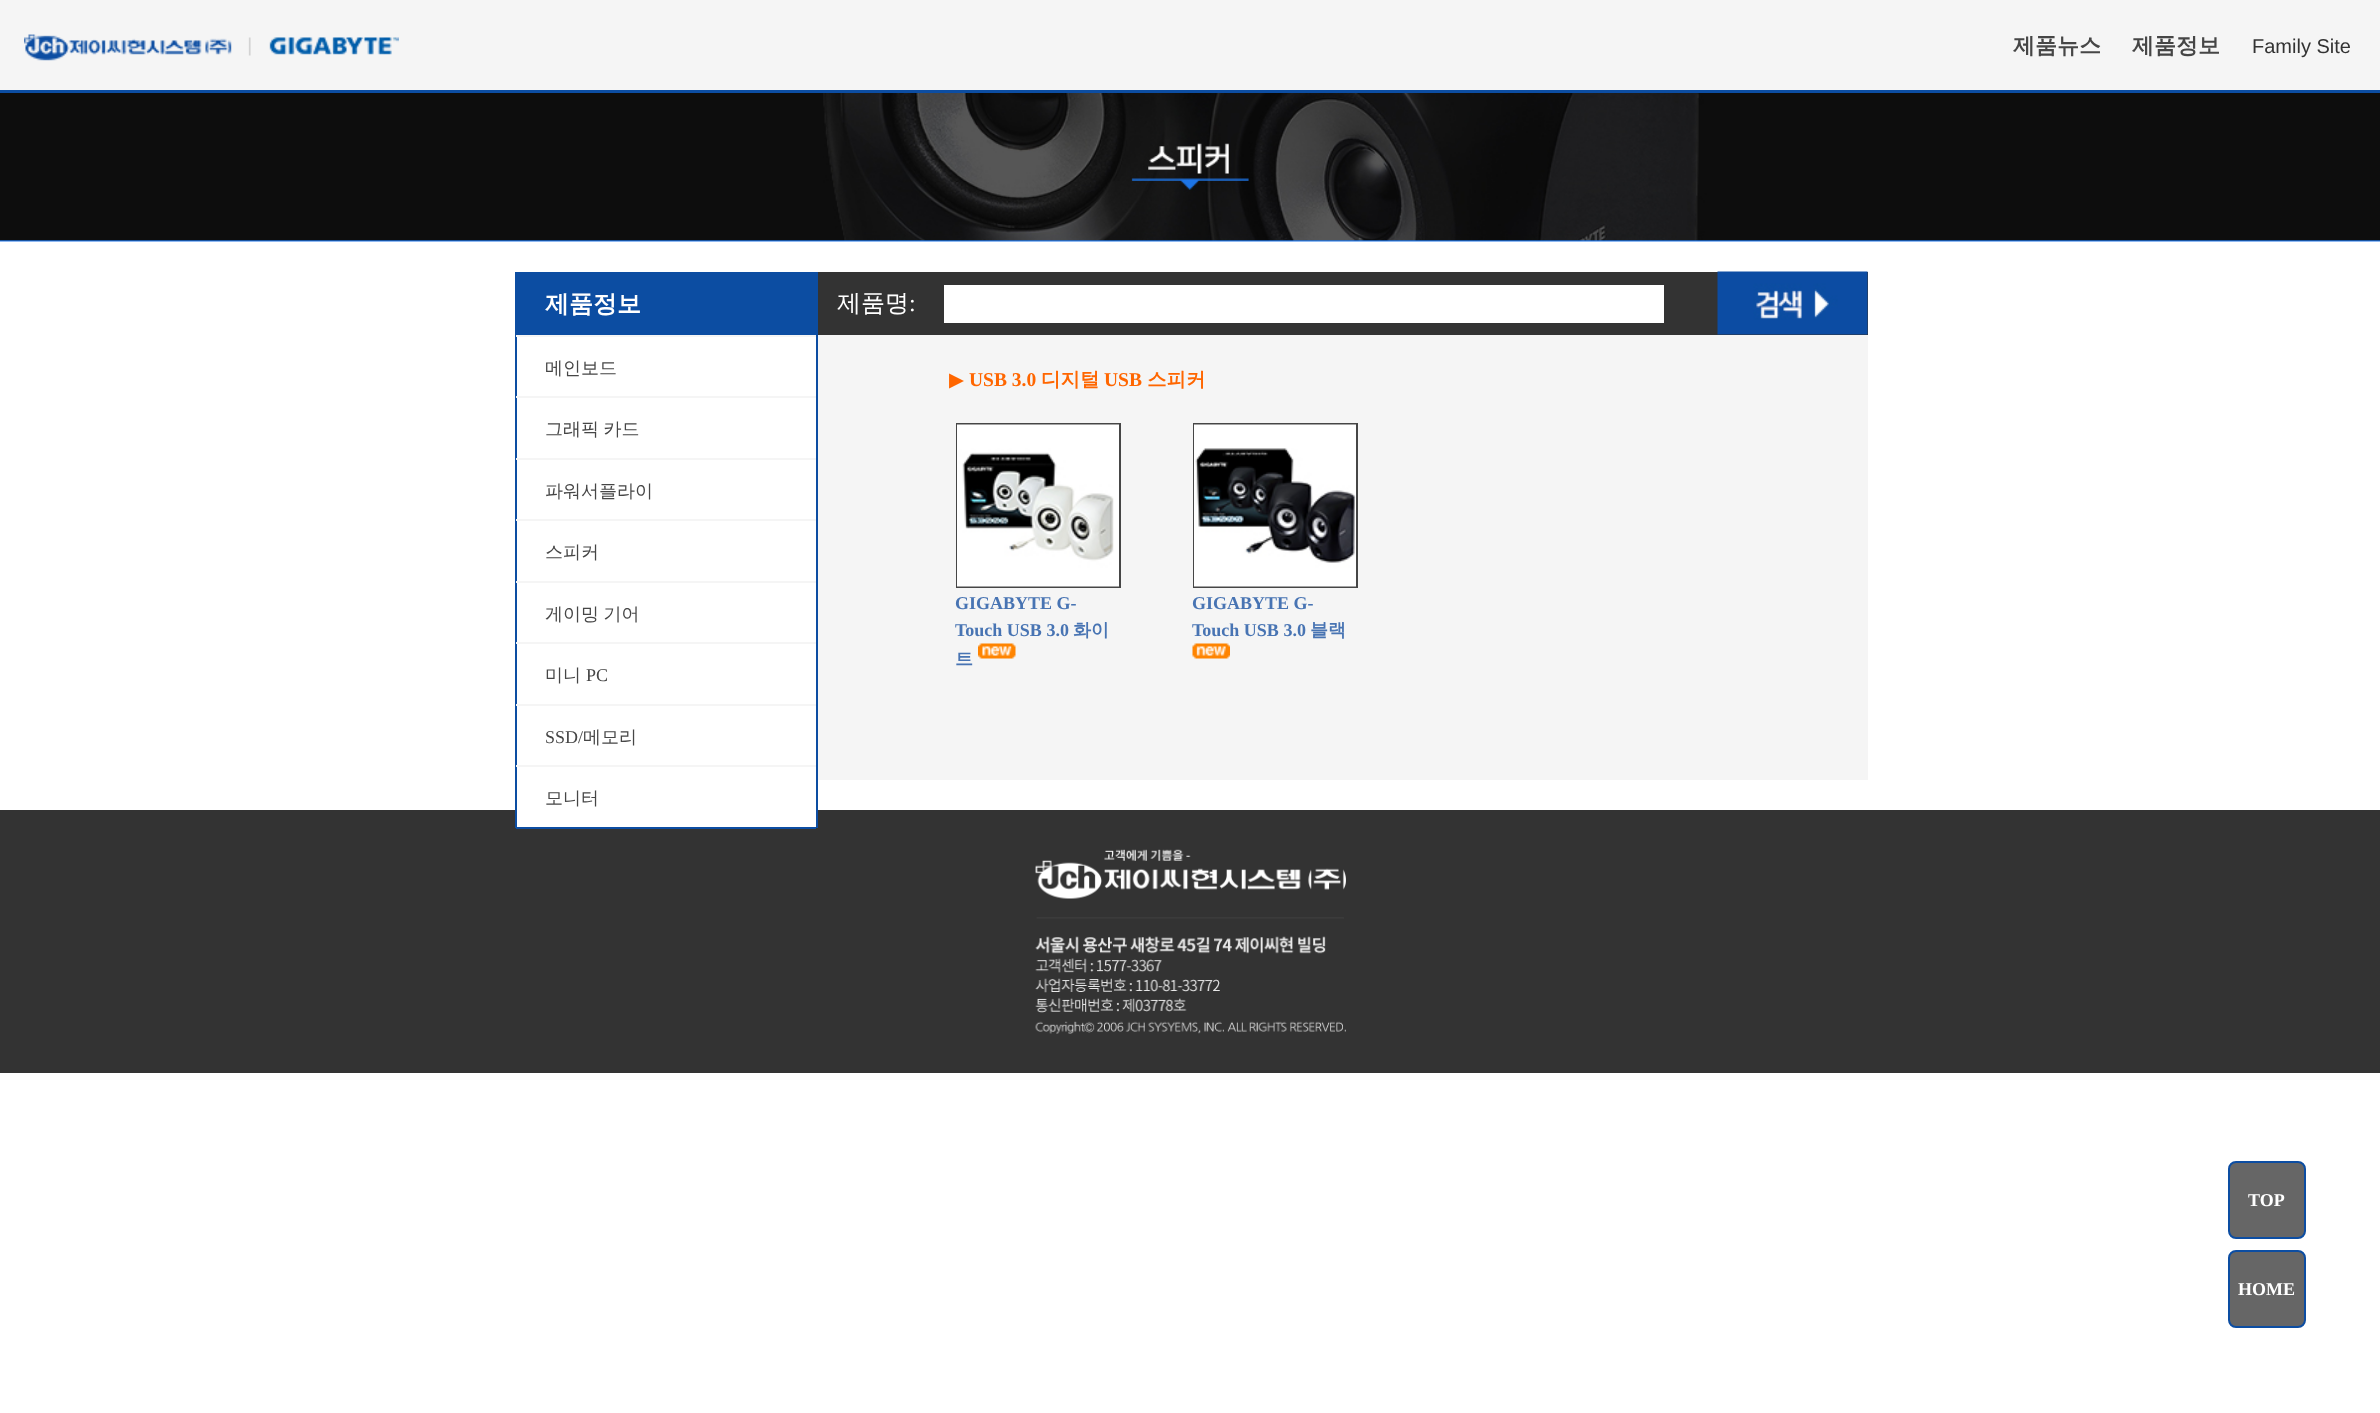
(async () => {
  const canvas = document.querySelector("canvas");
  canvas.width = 2380;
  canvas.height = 1413;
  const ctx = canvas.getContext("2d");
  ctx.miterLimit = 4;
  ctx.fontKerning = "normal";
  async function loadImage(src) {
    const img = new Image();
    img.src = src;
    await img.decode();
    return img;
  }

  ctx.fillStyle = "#ffffff";
  ctx.fillRect(0, 0, 2380, 1413);
  ctx.fillStyle = "#f5f5f5";
  ctx.fillRect(0, 0, 2380, 90);
  ctx.fillStyle = "#0c4da2";
  ctx.fillRect(0, 90, 2380, 3);
  ctx.drawImage(await loadImage("img/1.png"), 24, 34, 375, 27);
  ctx.drawImage(await loadImage("img/2.png"), 0, 93, 2380, 149);
  for (const [x, y, w, h, color] of [
    [818, 335, 1050, 445, "#f5f5f5"],
    [0, 810, 2380, 263, "#333333"],
    [517, 810, 299, 17, "#ffffff"],
    [515, 272, 303, 3, "#0c4da2"],
    [816, 272, 2, 556, "#0c4da2"],
    [515, 272, 2, 556, "#0c4da2"],
    [517, 275, 299, 60, "#0c4da2"],
    [516, 335, 300, 2, "#f5f5f5"],
    [516, 396, 300, 2, "#f5f5f5"],
    [516, 458, 300, 2, "#f5f5f5"],
    [516, 519, 300, 2, "#f5f5f5"],
    [516, 581, 300, 2, "#f5f5f5"],
    [516, 642, 300, 2, "#f5f5f5"],
    [516, 704, 300, 2, "#f5f5f5"],
    [516, 765, 300, 2, "#f5f5f5"],
    [516, 827, 300, 2, "#0c4da2"],
    [818, 272, 1050, 63, "#333333"],
    [944, 285, 720, 38, "#ffffff"],
  ]) {
    ctx.fillStyle = color;
    ctx.fillRect(x, y, w, h);
  }
  ctx.drawImage(await loadImage("img/3.png"), 1717, 271, 151, 64);
  ctx.strokeStyle = "#464646";
  ctx.lineWidth = 2;
  ctx.strokeRect(957, 424, 163, 163);
  ctx.drawImage(await loadImage("img/4.png"), 957, 424, 162, 163);
  ctx.drawImage(await loadImage("img/5.png"), 978, 643, 38, 16);
  ctx.strokeRect(1194, 424, 163, 163);
  ctx.drawImage(await loadImage("img/6.png"), 1194, 424, 162, 163);
  ctx.drawImage(await loadImage("img/7.png"), 1192, 643, 38, 16);
  ctx.drawImage(await loadImage("img/8.png"), 1035, 849, 311, 185);
  ctx.fillStyle = "#666666";
  ctx.beginPath();
  ctx.roundRect(2229, 1162, 76, 76, 7);
  ctx.fill();
  ctx.strokeStyle = "#0c4da2";
  ctx.stroke();
  ctx.beginPath();
  ctx.roundRect(2229, 1251, 76, 76, 7);
  ctx.fill();
  ctx.stroke();
  ctx.font = "bold 22px WenQuanYi Zen Hei";
  ctx.fillStyle = "#464646";
  ctx.fillText("제품뉴스", 2013, 53);
  ctx.fillText("제품정보", 2132, 53);
  ctx.font = "20px Liberation Sans";
  ctx.fillStyle = "#333333";
  ctx.fillText("Family Site", 2252, 53);
  ctx.font = "bold 24px WenQuanYi Zen Hei";
  ctx.fillStyle = "#ffffff";
  ctx.fillText("제품정보", 545, 312);
  ctx.font = "500 18px WenQuanYi Zen Hei";
  ctx.fillStyle = "#464646";
  ctx.fillText("메인보드", 545, 374);
  ctx.wordSpacing = "-1px";
  ctx.fillText("그래픽 카드", 545, 435);
  ctx.wordSpacing = "0px";
  ctx.fillText("파워서플라이", 545, 497);
  ctx.fillText("스피커", 545, 558);
  ctx.wordSpacing = "-1px";
  ctx.fillText("게이밍 기어", 545, 620);
  ctx.wordSpacing = "0px";
  ctx.fillText("미니", 545, 681);
  ctx.font = "18px Liberation Serif";
  ctx.fillText("PC", 586, 681);
  ctx.fillText("SSD/", 545, 743);
  ctx.font = "500 18px WenQuanYi Zen Hei";
  ctx.fillText("메모리", 583, 743);
  ctx.fillText("모니터", 545, 804);
  ctx.font = "500 24px WenQuanYi Zen Hei";
  ctx.fillStyle = "#ffffff";
  ctx.fillText("제품명", 837, 311);
  ctx.font = "24px Liberation Serif";
  ctx.fillText(":", 909, 311);
  ctx.font = "19.5px DejaVu Sans";
  ctx.fillStyle = "#ff6600";
  ctx.fillText("▶", 949, 386);
  ctx.font = "bold 19.5px Liberation Serif";
  ctx.fillText("USB 3.0", 969, 386);
  ctx.font = "bold 19.5px WenQuanYi Zen Hei";
  ctx.fillText("디지털", 1041, 386);
  ctx.font = "bold 19.5px Liberation Serif";
  ctx.fillText("USB", 1104, 386);
  ctx.font = "bold 19.5px WenQuanYi Zen Hei";
  ctx.fillText("스피커", 1147, 386);
  ctx.font = "bold 18px Liberation Serif";
  ctx.fillStyle = "#4874b3";
  ctx.fillText("GIGABYTE G-", 955, 609);
  ctx.fillText("Touch USB 3.0", 955, 636);
  ctx.font = "bold 18px WenQuanYi Zen Hei";
  ctx.fillText("화이", 1073, 636);
  ctx.fillText("트", 955, 665);
  ctx.font = "bold 18px Liberation Serif";
  ctx.fillText("GIGABYTE G-", 1192, 609);
  ctx.fillText("Touch USB 3.0", 1192, 636);
  ctx.font = "bold 18px WenQuanYi Zen Hei";
  ctx.fillText("블랙", 1310, 636);
  ctx.font = "bold 18px Liberation Serif";
  ctx.fillStyle = "#ffffff";
  ctx.fillText("TOP", 2248, 1206);
  ctx.fillText("HOME", 2238, 1295);
})();
